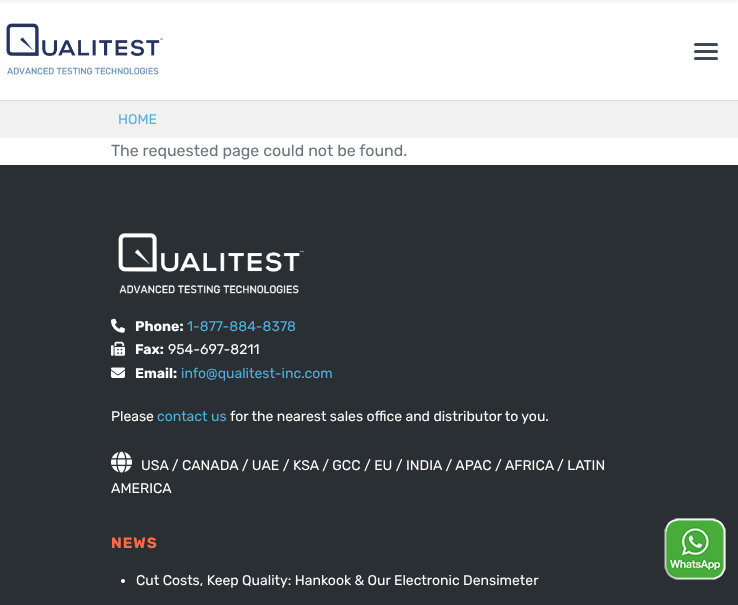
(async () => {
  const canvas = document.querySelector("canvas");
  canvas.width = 738;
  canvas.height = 605;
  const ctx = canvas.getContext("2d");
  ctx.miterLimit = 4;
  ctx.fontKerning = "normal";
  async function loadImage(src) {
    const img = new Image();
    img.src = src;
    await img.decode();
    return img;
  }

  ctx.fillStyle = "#ffffff";
  ctx.fillRect(0, 0, 738, 605);
  ctx.fillStyle = "rgba(96, 96, 96, 0.1)";
  ctx.filter = "blur(1.5px)";
  ctx.beginPath();
  ctx.rect(0, -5, 738, 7);
  ctx.fill();
  ctx.filter = "none";
  ctx.fillStyle = "#e0e0e0";
  ctx.fillRect(0, 100, 738, 1);
  ctx.drawImage(await loadImage("img/1.png"), 6, 23, 157, 52);
  ctx.fillStyle = "#3e495b";
  ctx.beginPath();
  ctx.roundRect(694, 43, 24, 3, 1.5);
  ctx.fill();
  ctx.beginPath();
  ctx.roundRect(694, 50, 24, 3, 1.5);
  ctx.fill();
  ctx.beginPath();
  ctx.roundRect(694, 57, 24, 3, 1.5);
  ctx.fill();
  ctx.fillStyle = "#2a2f33";
  ctx.fillRect(0, 165, 738, 440);
  ctx.drawImage(await loadImage("img/2.png"), 664, 518, 62, 62);
  ctx.fillStyle = "#f1f1f1";
  ctx.fillRect(0, 101, 738, 37);
  ctx.drawImage(await loadImage("img/3.png"), 118, 233, 186, 61);
  ctx.drawImage(await loadImage("img/4.png"), 111, 318, 14, 15);
  ctx.drawImage(await loadImage("img/5.png"), 111, 341, 14, 15);
  ctx.drawImage(await loadImage("img/6.png"), 111, 367, 14, 11);
  ctx.drawImage(await loadImage("img/7.png"), 111, 451, 21, 22);
  ctx.fillStyle = "#ffffff";
  ctx.beginPath();
  ctx.arc(123, 581, 2, 0, Math.PI * 2);
  ctx.fill();
  ctx.font = "14px Rubik";
  ctx.fillStyle = "#53b0dd";
  ctx.fillText("HOME", 118, 124);
  ctx.font = "16px Rubik";
  ctx.fillStyle = "#6c757d";
  ctx.fillText("The requested page could not be found.", 111, 156);
  ctx.font = "bold 14px Rubik";
  ctx.fillStyle = "#ffffff";
  ctx.fillText("Phone:", 135, 331);
  ctx.font = "14px Rubik";
  ctx.fillStyle = "#53b0dd";
  ctx.fillText("1-877-884-8378", 187, 331);
  ctx.font = "bold 14px Rubik";
  ctx.fillStyle = "#ffffff";
  ctx.fillText("Fax:", 135, 354);
  ctx.font = "14px Rubik";
  ctx.fillText("954-697-8211", 168, 354);
  ctx.font = "bold 14px Rubik";
  ctx.fillText("Email:", 135, 378);
  ctx.font = "14px Rubik";
  ctx.fillStyle = "#53b0dd";
  ctx.fillText("info@qualitest-inc.com", 181, 378);
  ctx.fillStyle = "#ffffff";
  ctx.fillText("Please", 111, 421);
  ctx.fillStyle = "#53b0dd";
  ctx.fillText("contact us", 157, 421);
  ctx.fillStyle = "#ffffff";
  for (const [text, x, y] of [
    ["for the nearest sales office and distributor to you.", 230, 421],
    ["USA / CANADA / UAE / KSA / GCC / EU / INDIA / APAC / AFRICA / LATIN", 141, 470],
    ["AMERICA", 111, 493],
  ]) {
    ctx.fillText(text, x, y);
  }
  ctx.letterSpacing = "1px";
  ctx.font = "bold 15px Rubik";
  ctx.fillStyle = "#ff6c44";
  ctx.fillText("NEWS", 111, 548);
  ctx.letterSpacing = "0px";
  ctx.font = "14px Rubik";
  ctx.fillStyle = "#ffffff";
  ctx.fillText("Cut Costs, Keep Quality: Hankook & Our Electronic Densimeter", 136, 585);
})();
